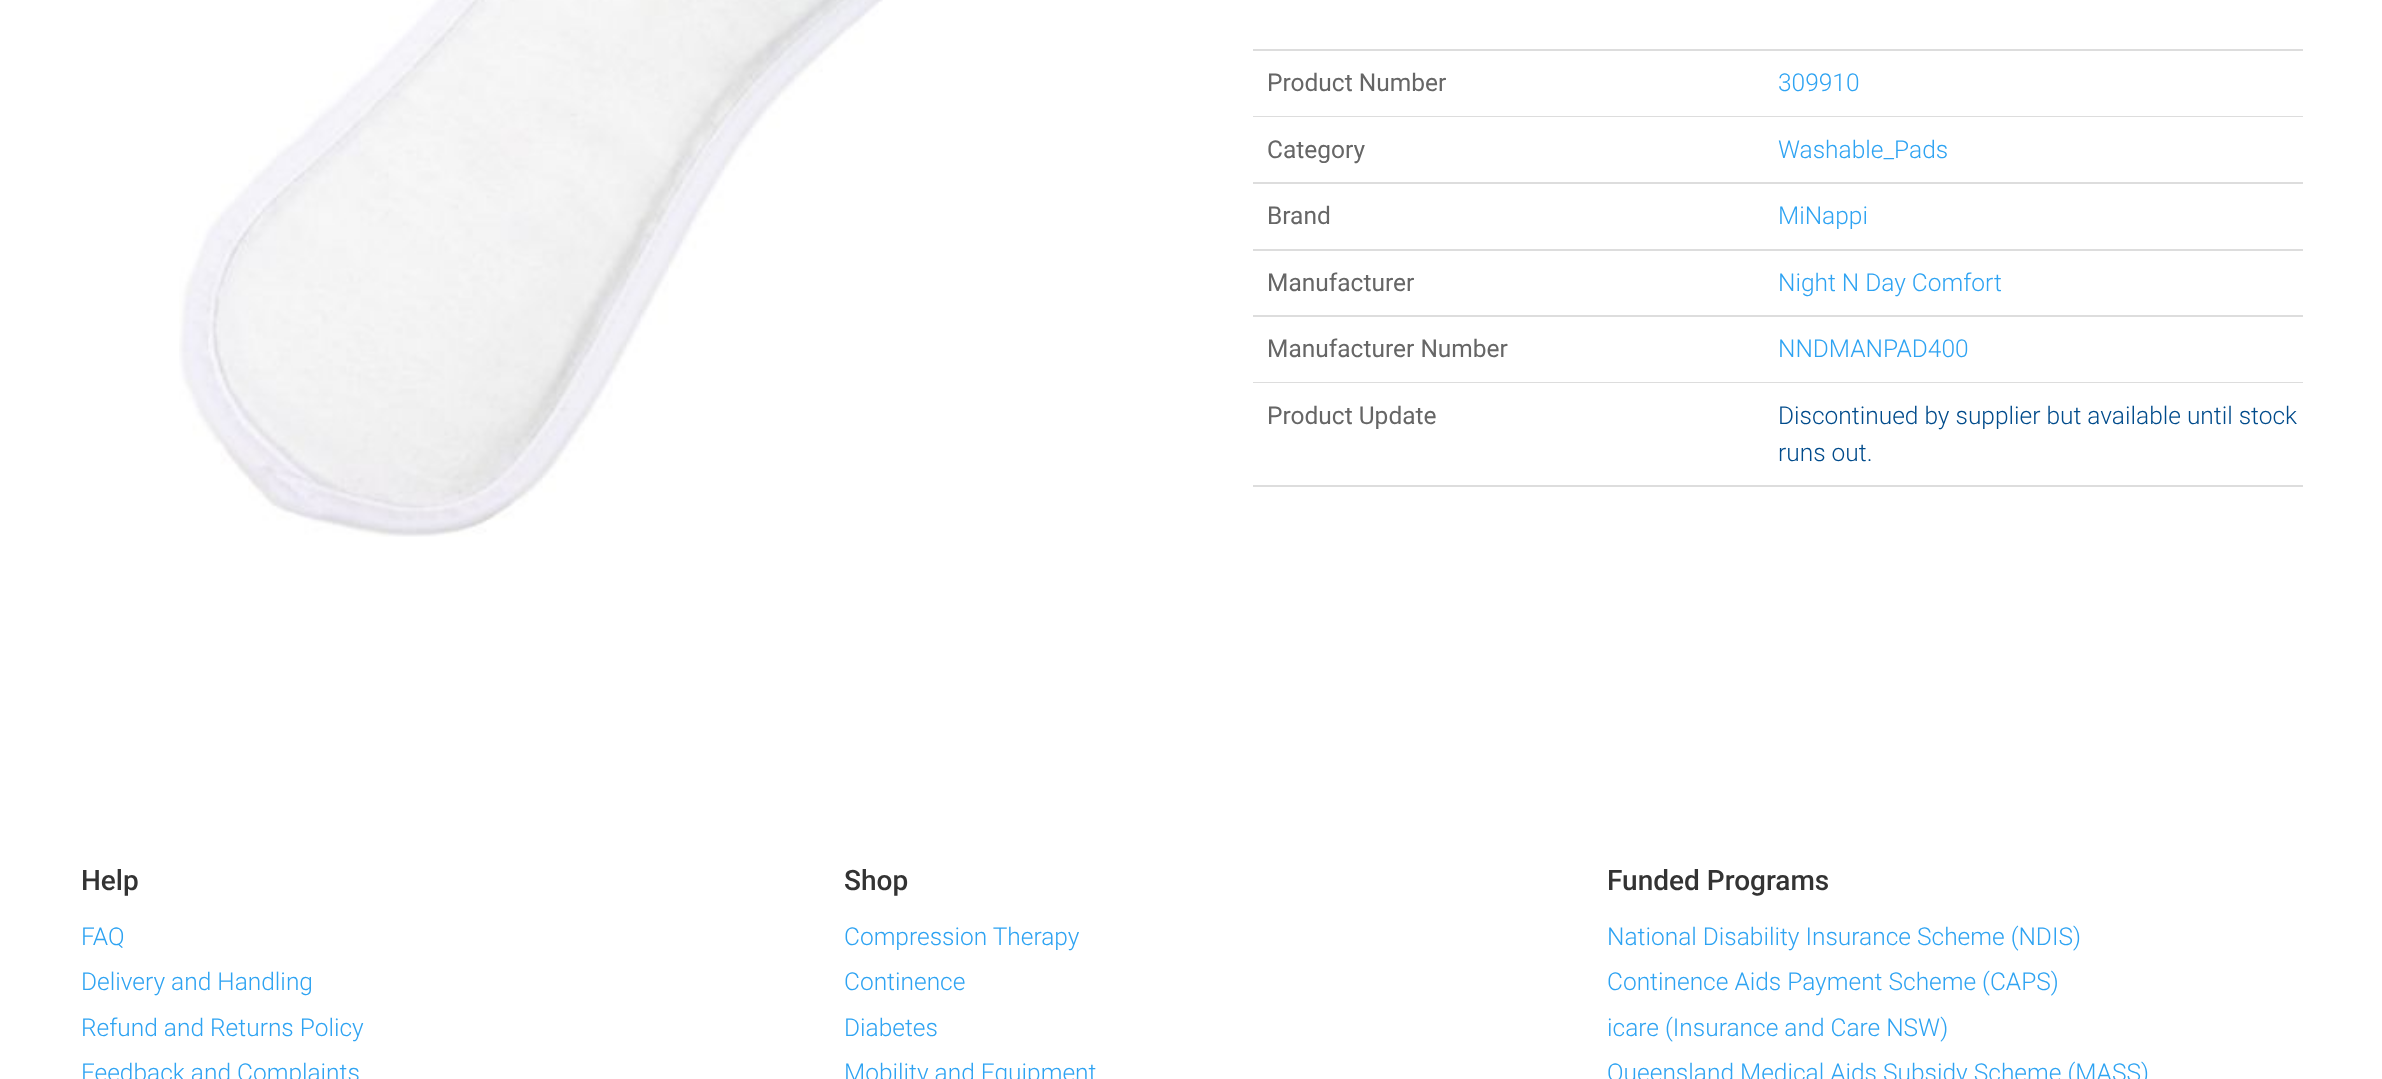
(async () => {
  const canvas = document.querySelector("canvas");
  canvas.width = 2382;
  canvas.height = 1079;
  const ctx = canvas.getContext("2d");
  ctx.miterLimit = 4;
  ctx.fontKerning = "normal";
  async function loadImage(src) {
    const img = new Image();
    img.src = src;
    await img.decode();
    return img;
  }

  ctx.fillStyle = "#ffffff";
  ctx.fillRect(0, 0, 2382, 1079);
  ctx.drawImage(await loadImage("img/1.png"), 179, 0, 704, 537);
  for (const [x, y, w, h, color] of [
    [1253, 49, 1050, 2, "#dddddd"],
    [1253, 116, 1050, 1, "#dddddd"],
    [1253, 182, 1050, 2, "#dddddd"],
    [1253, 249, 1050, 2, "#dddddd"],
    [1253, 315, 1050, 2, "#dddddd"],
    [1253, 382, 1050, 1, "#dddddd"],
    [1253, 485, 1050, 2, "#dddddd"],
  ]) {
    ctx.fillStyle = color;
    ctx.fillRect(x, y, w, h);
  }
  ctx.font = "24.5px Roboto";
  ctx.fillStyle = "#666666";
  ctx.fillText("Product Number", 1267, 91);
  ctx.font = "300 24.5px Roboto";
  ctx.fillStyle = "#2ea3f2";
  ctx.fillText("309910", 1778, 91);
  ctx.font = "24.5px Roboto";
  ctx.fillStyle = "#666666";
  ctx.fillText("Category", 1267, 158);
  ctx.font = "300 24.5px Roboto";
  ctx.fillStyle = "#2ea3f2";
  ctx.fillText("Washable_Pads", 1778, 158);
  ctx.font = "24.5px Roboto";
  ctx.fillStyle = "#666666";
  ctx.fillText("Brand", 1267, 224);
  ctx.font = "300 24.5px Roboto";
  ctx.fillStyle = "#2ea3f2";
  ctx.fillText("MiNappi", 1778, 224);
  ctx.font = "24.5px Roboto";
  ctx.fillStyle = "#666666";
  ctx.fillText("Manufacturer", 1267, 291);
  ctx.font = "300 24.5px Roboto";
  ctx.fillStyle = "#2ea3f2";
  ctx.fillText("Night N Day Comfort", 1778, 291);
  ctx.font = "24.5px Roboto";
  ctx.fillStyle = "#666666";
  ctx.fillText("Manufacturer Number", 1267, 357);
  ctx.font = "300 24.5px Roboto";
  ctx.fillStyle = "#2ea3f2";
  ctx.fillText("NNDMANPAD400", 1778, 357);
  ctx.font = "24.5px Roboto";
  ctx.fillStyle = "#666666";
  ctx.fillText("Product Update", 1267, 424);
  ctx.font = "300 24.5px Roboto";
  ctx.fillStyle = "#004b8b";
  ctx.fillText("Discontinued by supplier but available until stock", 1778, 424);
  ctx.fillText("runs out.", 1778, 461);
  ctx.font = "500 28px Roboto";
  ctx.fillStyle = "#333333";
  ctx.fillText("Help", 81, 890);
  ctx.font = "300 24.5px Roboto";
  ctx.fillStyle = "#2ea3f2";
  for (const [text, x, y] of [
    ["FAQ", 81, 945],
    ["Delivery and Handling", 81, 990],
    ["Refund and Returns Policy", 81, 1036],
    ["Feedback and Complaints", 81, 1081],
  ]) {
    ctx.fillText(text, x, y);
  }
  ctx.font = "500 28px Roboto";
  ctx.fillStyle = "#333333";
  ctx.fillText("Shop", 844, 890);
  ctx.font = "300 24.5px Roboto";
  ctx.fillStyle = "#2ea3f2";
  for (const [text, x, y] of [
    ["Compression Therapy", 844, 945],
    ["Continence", 844, 990],
    ["Diabetes", 844, 1036],
    ["Mobility and Equipment", 844, 1081],
  ]) {
    ctx.fillText(text, x, y);
  }
  ctx.font = "500 28px Roboto";
  ctx.fillStyle = "#333333";
  ctx.fillText("Funded Programs", 1607, 890);
  ctx.font = "300 24.5px Roboto";
  ctx.fillStyle = "#2ea3f2";
  for (const [text, x, y] of [
    ["National Disability Insurance Scheme (NDIS)", 1607, 945],
    ["Continence Aids Payment Scheme (CAPS)", 1607, 990],
    ["icare (Insurance and Care NSW)", 1607, 1036],
    ["Queensland Medical Aids Subsidy Scheme (MASS)", 1607, 1081],
  ]) {
    ctx.fillText(text, x, y);
  }
})();
